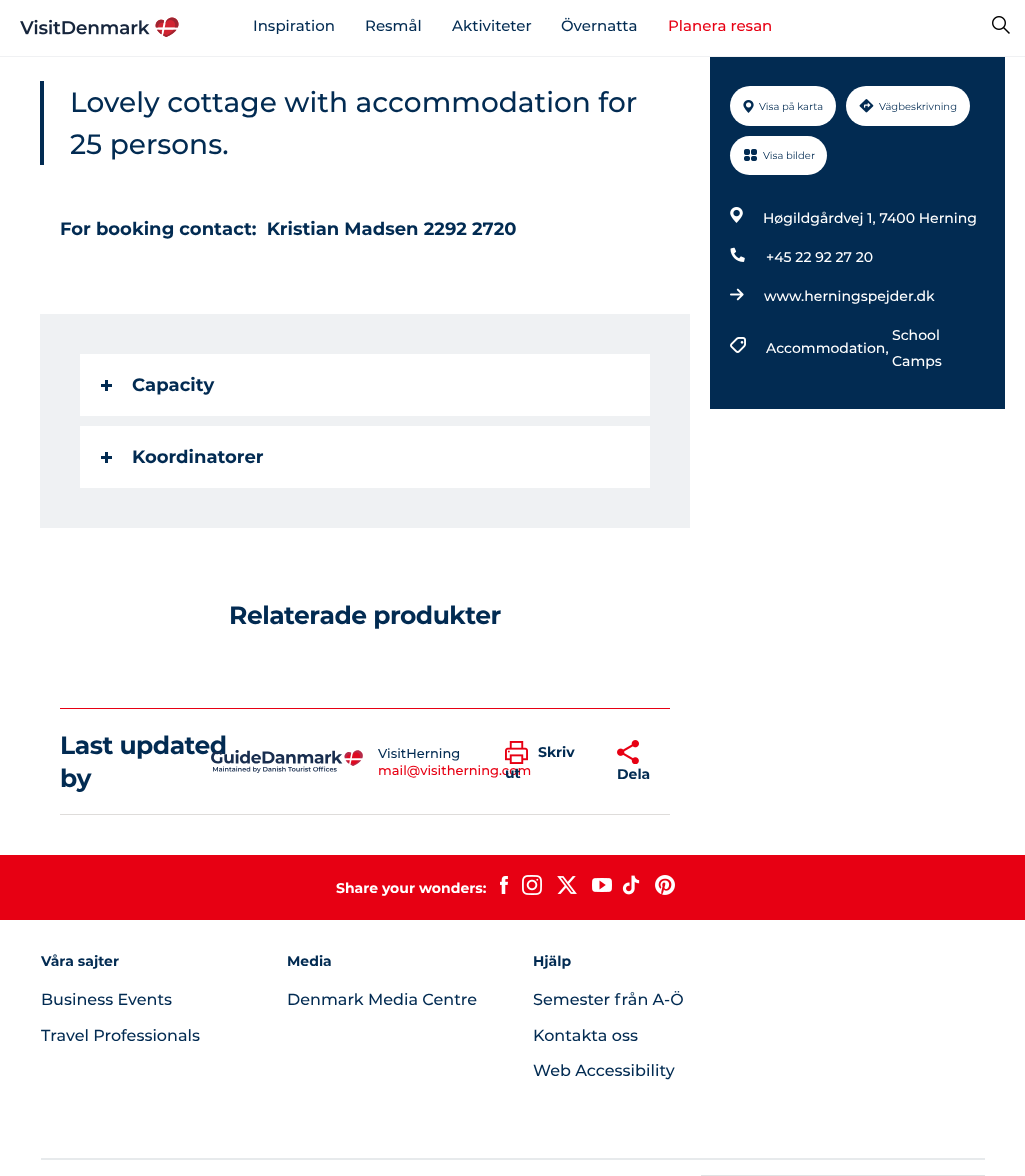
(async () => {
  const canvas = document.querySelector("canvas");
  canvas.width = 1025;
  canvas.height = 1176;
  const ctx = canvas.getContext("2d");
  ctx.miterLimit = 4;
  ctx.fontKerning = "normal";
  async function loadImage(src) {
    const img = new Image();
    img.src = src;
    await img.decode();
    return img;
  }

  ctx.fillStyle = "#ffffff";
  ctx.fillRect(0, 0, 1025, 1176);
  ctx.fillStyle = "#f0f1f3";
  ctx.fillRect(0, 56, 1025, 1);
  ctx.drawImage(await loadImage("img/1.png"), 20, 17, 159, 20);
  ctx.drawImage(await loadImage("img/2.png"), 992, 16, 18, 18);
  for (const [x, y, w, h, color] of [
    [40, 81, 4, 84, "#022b52"],
    [40, 314, 650, 214, "#eff1f3"],
    [80, 354, 570, 62, "#ffffff"],
    [101, 384, 11, 3, "#022b52"],
    [105, 380, 3, 11, "#022b52"],
    [80, 426, 570, 62, "#ffffff"],
    [101, 456, 11, 3, "#022b52"],
    [105, 452, 3, 11, "#022b52"],
    [60, 708, 610, 1, "#e70013"],
    [60, 814, 610, 1, "#dedcda"],
  ]) {
    ctx.fillStyle = color;
    ctx.fillRect(x, y, w, h);
  }
  ctx.drawImage(await loadImage("img/4.png"), 505, 741, 23, 23);
  ctx.drawImage(await loadImage("img/5.png"), 617, 740, 22, 24);
  ctx.fillStyle = "#022b52";
  ctx.fillRect(710, 57, 295, 352);
  ctx.fillStyle = "#ffffff";
  ctx.beginPath();
  ctx.roundRect(730, 86, 106, 40, 20);
  ctx.fill();
  ctx.drawImage(await loadImage("img/6.png"), 743, 100, 11, 13);
  ctx.beginPath();
  ctx.roundRect(846, 86, 124, 40, 20);
  ctx.fill();
  ctx.drawImage(await loadImage("img/7.png"), 859, 99, 15, 14);
  ctx.beginPath();
  ctx.roundRect(730, 136, 97, 39, 19.5);
  ctx.fill();
  ctx.drawImage(await loadImage("img/8.png"), 744, 149, 13, 12);
  ctx.drawImage(await loadImage("img/9.png"), 730, 207, 13, 16);
  ctx.drawImage(await loadImage("img/10.png"), 730, 247, 15, 15);
  ctx.drawImage(await loadImage("img/11.png"), 730, 288, 14, 13);
  ctx.drawImage(await loadImage("img/12.png"), 730, 337, 16, 16);
  ctx.fillStyle = "#e70013";
  ctx.fillRect(0, 855, 1025, 65);
  ctx.drawImage(await loadImage("img/13.png"), 500, 876, 8, 18);
  ctx.drawImage(await loadImage("img/14.png"), 522, 875, 20, 20);
  ctx.drawImage(await loadImage("img/15.png"), 557, 876, 20, 18);
  ctx.drawImage(await loadImage("img/16.png"), 592, 878, 20, 14);
  ctx.drawImage(await loadImage("img/17.png"), 622, 875, 18, 20);
  ctx.drawImage(await loadImage("img/18.png"), 655, 875, 20, 20);
  ctx.fillStyle = "#e7eaec";
  ctx.fillRect(41, 1158, 944, 2);
  ctx.strokeStyle = "#e1e2e3";
  ctx.strokeRect(701.5, 1175.5, 283, 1);
  ctx.font = "500 15px Montserrat";
  ctx.fillStyle = "#022b52";
  for (const [text, x, y] of [
    ["Inspiration", 253, 31],
    ["Resmål", 365, 31],
    ["Aktiviteter", 452, 31],
    ["Övernatta", 561, 31],
  ]) {
    ctx.fillText(text, x, y);
  }
  ctx.fillStyle = "#e70013";
  ctx.fillText("Planera resan", 668, 31);
  ctx.font = "500 28px Montserrat";
  ctx.fillStyle = "#022b52";
  ctx.fillText("Lovely cottage with accommodation for", 70, 112);
  ctx.fillText("25 persons.", 70, 154);
  ctx.font = "bold 18px Montserrat";
  for (const [text, x, y] of [
    ["For booking contact:  Kristian Madsen 2292 2720", 60, 235],
    ["Capacity", 132, 391],
    ["Koordinatorer", 132, 463],
  ]) {
    ctx.fillText(text, x, y);
  }
  ctx.letterSpacing = "-0.5px";
  ctx.font = "bold 25px Montserrat";
  for (const [text, x, y] of [
    ["Relaterade produkter", 229, 624],
    ["Last updated", 60, 754],
    ["by", 60, 787],
  ]) {
    ctx.fillText(text, x, y);
  }
  ctx.drawImage(await loadImage("img/3.png"), 211, 750, 152, 23);
  ctx.letterSpacing = "0px";
  ctx.font = "500 13px Montserrat";
  ctx.fillText("VisitHerning", 378, 758);
  ctx.fillStyle = "#e70013";
  ctx.fillText("mail@visitherning.com", 378, 775);
  ctx.font = "bold 14px Montserrat";
  ctx.fillStyle = "#022b52";
  for (const [text, x, y] of [
    ["Skriv", 538, 757],
    ["ut", 505, 778],
    ["Dela", 617, 779],
  ]) {
    ctx.fillText(text, x, y);
  }
  ctx.font = "10px Montserrat";
  for (const [text, x, y] of [
    ["Visa på karta", 759, 110],
    ["Vägbeskrivning", 879, 110],
    ["Visa bilder", 763, 159],
  ]) {
    ctx.fillText(text, x, y);
  }
  ctx.font = "500 14px Montserrat";
  ctx.fillStyle = "#ffffff";
  for (const [text, x, y] of [
    ["Høgildgårdvej 1, 7400 Herning", 763, 223],
    ["+45 22 92 27 20", 766, 262],
    ["www.herningspejder.dk", 764, 301],
    ["Accommodation,", 766, 353],
    ["School", 892, 340],
    ["Camps", 892, 366],
  ]) {
    ctx.fillText(text, x, y);
  }
  ctx.font = "bold 14px Montserrat";
  ctx.fillText("Share your wonders:", 336, 893);
  ctx.fillStyle = "#022b52";
  ctx.fillText("Våra sajter", 41, 966);
  ctx.font = "500 16px Montserrat";
  ctx.fillText("Business Events", 41, 1005);
  ctx.fillText("Travel Professionals", 41, 1041);
  ctx.font = "bold 14px Montserrat";
  ctx.fillText("Media", 287, 966);
  ctx.font = "500 16px Montserrat";
  ctx.fillText("Denmark Media Centre", 287, 1005);
  ctx.font = "bold 14px Montserrat";
  ctx.fillText("Hjälp", 533, 966);
  ctx.font = "500 16px Montserrat";
  for (const [text, x, y] of [
    ["Semester från A-Ö", 533, 1005],
    ["Kontakta oss", 533, 1041],
    ["Web Accessibility", 533, 1076],
  ]) {
    ctx.fillText(text, x, y);
  }
})();
